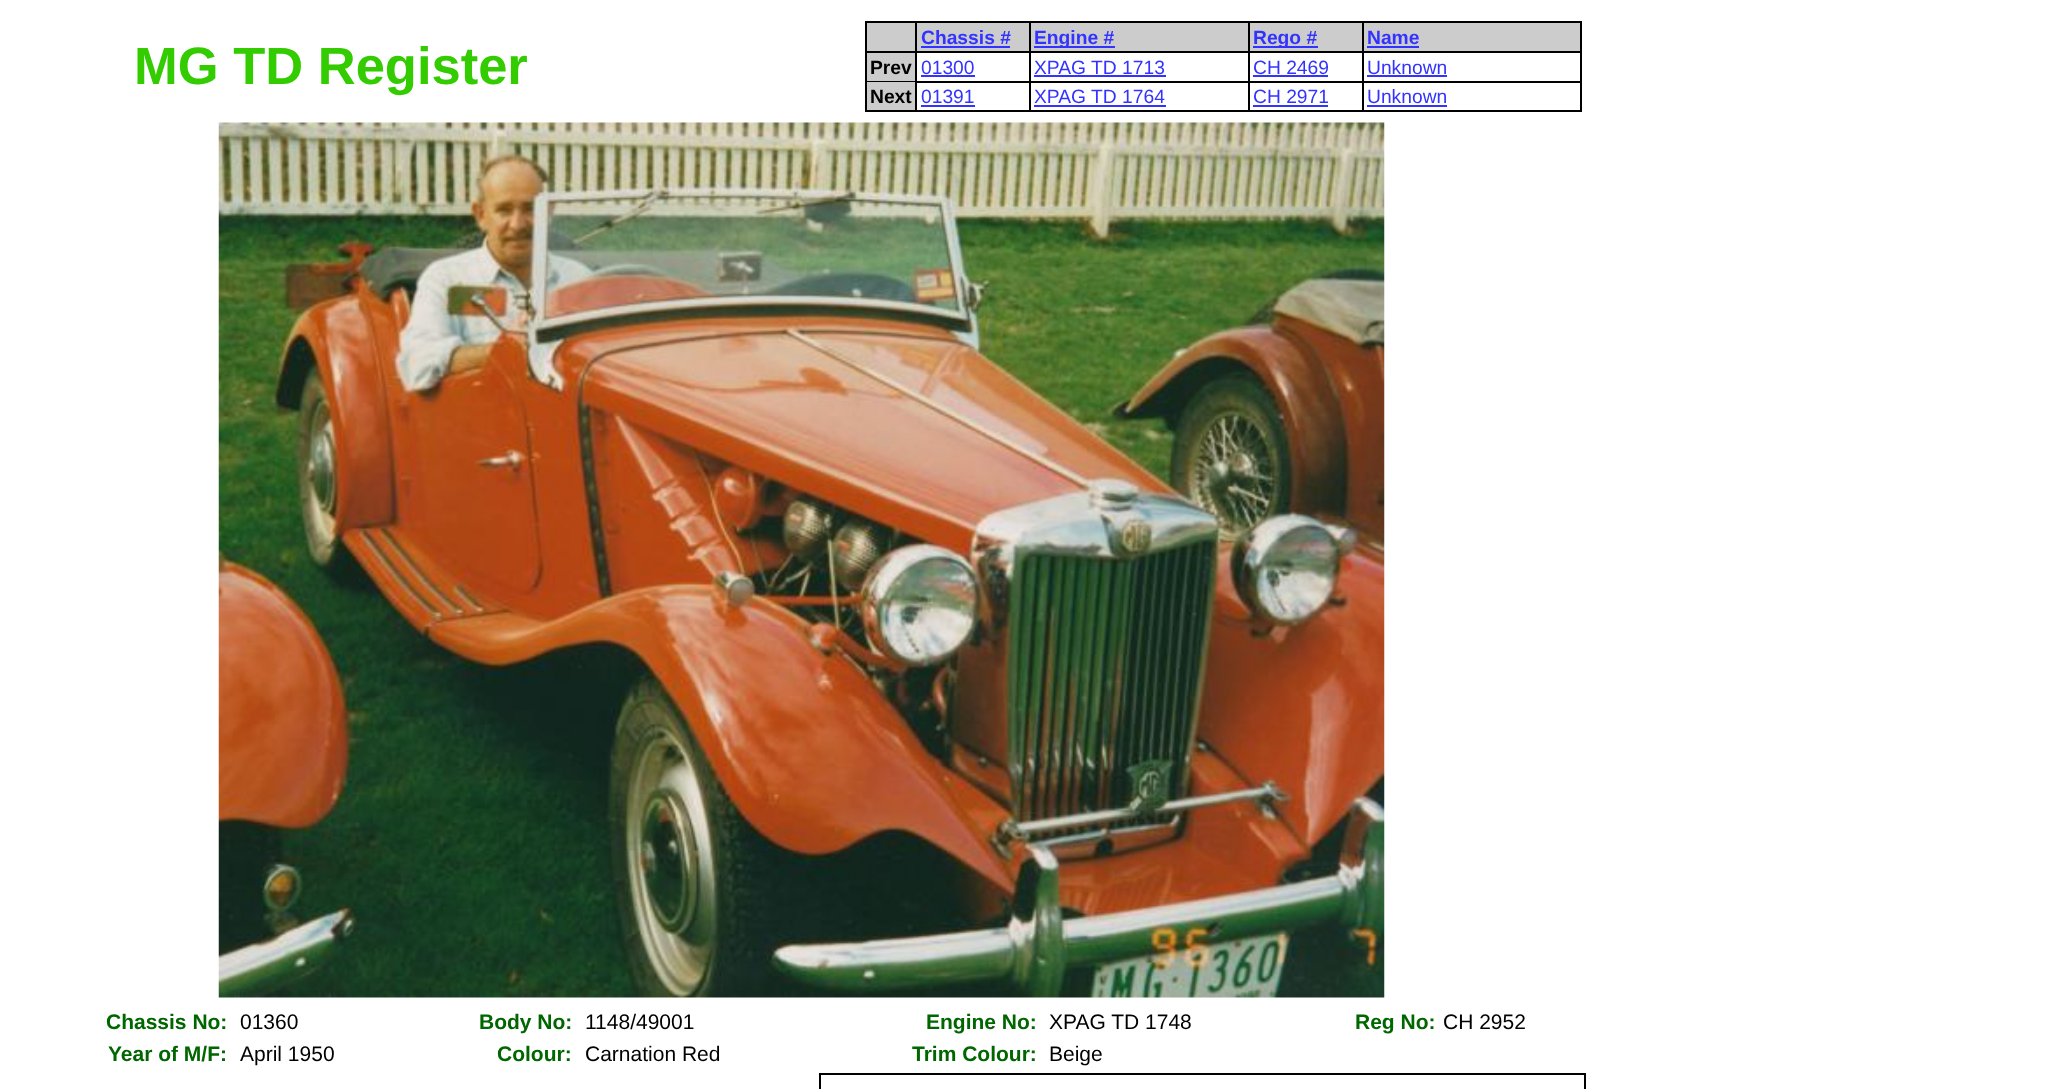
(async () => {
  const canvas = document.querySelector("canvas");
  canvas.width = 2064;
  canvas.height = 1089;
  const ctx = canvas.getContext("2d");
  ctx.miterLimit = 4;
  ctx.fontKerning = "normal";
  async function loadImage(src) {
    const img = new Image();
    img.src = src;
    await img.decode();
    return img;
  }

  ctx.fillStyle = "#ffffff";
  ctx.fillRect(0, 0, 2064, 1089);
  for (const [x, y, w, h, color] of [
    [865, 21, 717, 2, "#000000"],
    [1580, 21, 2, 91, "#000000"],
    [867, 23, 48, 28, "#cccccc"],
    [865, 51, 715, 2, "#000000"],
    [865, 23, 2, 30, "#000000"],
    [917, 23, 112, 28, "#cccccc"],
    [915, 23, 2, 59, "#000000"],
    [921, 46, 89, 2, "#3333ff"],
    [1031, 23, 217, 28, "#cccccc"],
    [1029, 23, 2, 30, "#000000"],
    [1034, 46, 81, 2, "#3333ff"],
    [1250, 23, 112, 28, "#cccccc"],
    [1248, 23, 2, 30, "#000000"],
    [1253, 46, 65, 2, "#3333ff"],
    [1364, 23, 216, 28, "#cccccc"],
    [1362, 23, 2, 30, "#000000"],
    [1367, 46, 52, 2, "#3333ff"],
    [917, 81, 663, 2, "#000000"],
    [867, 53, 48, 28, "#cccccc"],
    [865, 81, 50, 1, "#000000"],
    [865, 53, 2, 29, "#000000"],
    [921, 75, 54, 2, "#3333ff"],
    [1029, 53, 2, 29, "#000000"],
    [1034, 75, 132, 2, "#3333ff"],
    [1248, 53, 2, 29, "#000000"],
    [1253, 75, 75, 2, "#3333ff"],
    [1362, 53, 2, 29, "#000000"],
    [1367, 75, 80, 2, "#3333ff"],
    [867, 82, 48, 28, "#cccccc"],
    [865, 110, 715, 2, "#000000"],
    [865, 82, 2, 30, "#000000"],
    [915, 82, 2, 30, "#000000"],
    [921, 105, 54, 2, "#3333ff"],
    [1029, 82, 2, 30, "#000000"],
    [1034, 105, 132, 2, "#3333ff"],
    [1248, 82, 2, 30, "#000000"],
    [1253, 105, 75, 2, "#3333ff"],
    [1362, 82, 2, 30, "#000000"],
    [1367, 105, 80, 2, "#3333ff"],
  ]) {
    ctx.fillStyle = color;
    ctx.fillRect(x, y, w, h);
  }
  ctx.drawImage(await loadImage("img/1.png"), 218, 122, 1167, 876);
  ctx.strokeStyle = "#000000";
  ctx.lineWidth = 2;
  ctx.strokeRect(820, 1074, 765, 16);
  ctx.font = "bold 52.5px Liberation Sans";
  ctx.fillStyle = "#33cc00";
  ctx.fillText("MG TD Register", 134, 84);
  ctx.font = "bold 19.25px Liberation Sans";
  ctx.fillStyle = "#3333ff";
  for (const [text, x, y] of [
    ["Chassis #", 921, 44],
    ["Engine #", 1034, 44],
    ["Rego #", 1253, 44],
    ["Name", 1367, 44],
  ]) {
    ctx.fillText(text, x, y);
  }
  ctx.fillStyle = "#000000";
  ctx.fillText("Prev", 870, 74);
  ctx.font = "19.25px Liberation Sans";
  ctx.fillStyle = "#3333ff";
  for (const [text, x, y] of [
    ["01300", 921, 74],
    ["XPAG TD 1713", 1034, 74],
    ["CH 2469", 1253, 74],
    ["Unknown", 1367, 74],
  ]) {
    ctx.fillText(text, x, y);
  }
  ctx.font = "bold 19.25px Liberation Sans";
  ctx.fillStyle = "#000000";
  ctx.fillText("Next", 870, 103);
  ctx.font = "19.25px Liberation Sans";
  ctx.fillStyle = "#3333ff";
  for (const [text, x, y] of [
    ["01391", 921, 103],
    ["XPAG TD 1764", 1034, 103],
    ["CH 2971", 1253, 103],
    ["Unknown", 1367, 103],
  ]) {
    ctx.fillText(text, x, y);
  }
  ctx.font = "bold 21px Liberation Sans";
  ctx.fillStyle = "#006600";
  ctx.fillText("Chassis No:", 106, 1029);
  ctx.font = "21px Liberation Sans";
  ctx.fillStyle = "#000000";
  ctx.fillText("01360", 240, 1029);
  ctx.font = "bold 21px Liberation Sans";
  ctx.fillStyle = "#006600";
  ctx.fillText("Body No:", 479, 1029);
  ctx.font = "21px Liberation Sans";
  ctx.fillStyle = "#000000";
  ctx.fillText("1148/49001", 585, 1029);
  ctx.font = "bold 21px Liberation Sans";
  ctx.fillStyle = "#006600";
  ctx.fillText("Engine No:", 926, 1029);
  ctx.font = "21px Liberation Sans";
  ctx.fillStyle = "#000000";
  ctx.fillText("XPAG TD 1748", 1049, 1029);
  ctx.font = "bold 21px Liberation Sans";
  ctx.fillStyle = "#006600";
  ctx.fillText("Reg No:", 1355, 1029);
  ctx.font = "21px Liberation Sans";
  ctx.fillStyle = "#000000";
  ctx.fillText("CH 2952", 1443, 1029);
  ctx.font = "bold 21px Liberation Sans";
  ctx.fillStyle = "#006600";
  ctx.fillText("Year of M/F:", 108, 1061);
  ctx.font = "21px Liberation Sans";
  ctx.fillStyle = "#000000";
  ctx.fillText("April 1950", 240, 1061);
  ctx.font = "bold 21px Liberation Sans";
  ctx.fillStyle = "#006600";
  ctx.fillText("Colour:", 497, 1061);
  ctx.font = "21px Liberation Sans";
  ctx.fillStyle = "#000000";
  ctx.fillText("Carnation Red", 585, 1061);
  ctx.font = "bold 21px Liberation Sans";
  ctx.fillStyle = "#006600";
  ctx.fillText("Trim Colour:", 912, 1061);
  ctx.font = "21px Liberation Sans";
  ctx.fillStyle = "#000000";
  ctx.fillText("Beige", 1049, 1061);
})();
